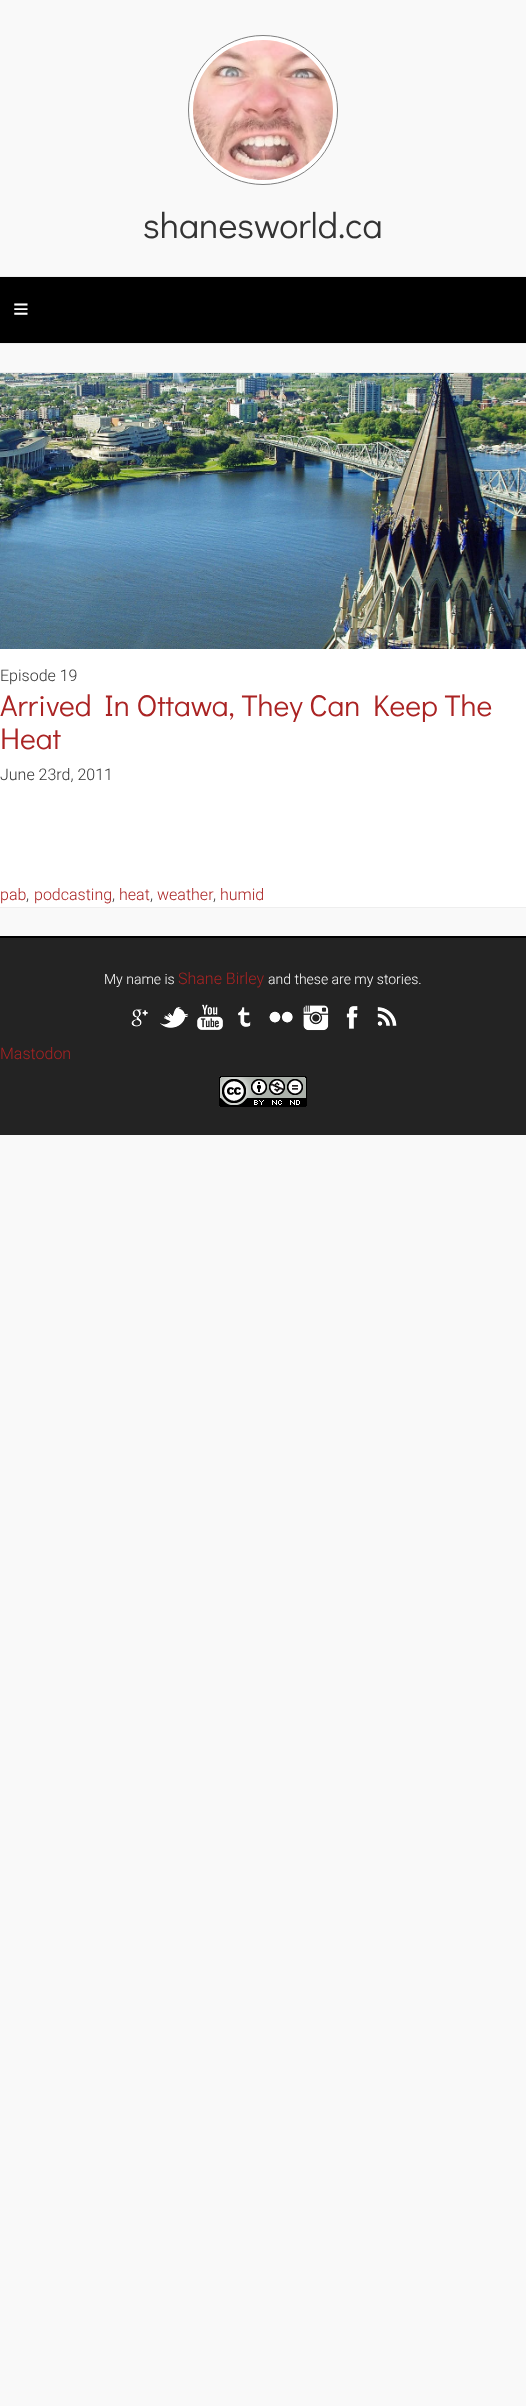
(async () => {
  const canvas = document.querySelector("canvas");
  canvas.width = 526;
  canvas.height = 2406;
  const ctx = canvas.getContext("2d");
  ctx.miterLimit = 4;
  ctx.fontKerning = "normal";
  async function loadImage(src) {
    const img = new Image();
    img.src = src;
    await img.decode();
    return img;
  }

  ctx.fillStyle = "#f9f9f9";
  ctx.fillRect(0, 0, 526, 2406);
  ctx.fillStyle = "#ffffff";
  ctx.beginPath();
  ctx.arc(263, 110, 74.5, 0, Math.PI * 2);
  ctx.fill();
  ctx.strokeStyle = "#7f7f7f";
  ctx.stroke();
  ctx.drawImage(await loadImage("img/1.png"), 193, 40, 140, 140);
  for (const [x, y, w, h, color] of [
    [0, 276, 526, 1, "#eeeeee"],
    [0, 343, 526, 1, "#eeeeee"],
    [0, 277, 526, 66, "#000000"],
    [0, 649, 526, 258, "#ffffff"],
  ]) {
    ctx.fillStyle = color;
    ctx.fillRect(x, y, w, h);
  }
  ctx.strokeStyle = "#eeeeee";
  ctx.strokeRect(-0.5, 372.5, 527, 535);
  ctx.drawImage(await loadImage("img/2.png"), 0, 373, 526, 276);
  ctx.fillStyle = "#000000";
  ctx.fillRect(0, 936, 526, 2);
  ctx.fillStyle = "#232323";
  ctx.fillRect(0, 938, 526, 197);
  ctx.drawImage(await loadImage("img/3.png"), 131, 1009, 17, 18);
  ctx.drawImage(await loadImage("img/4.png"), 160, 1007, 29, 21);
  ctx.drawImage(await loadImage("img/5.png"), 197, 1004, 26, 26);
  ctx.drawImage(await loadImage("img/6.png"), 238, 1007, 13, 20);
  ctx.drawImage(await loadImage("img/7.png"), 269, 1011, 24, 12);
  ctx.drawImage(await loadImage("img/8.png"), 303, 1005, 26, 26);
  ctx.drawImage(await loadImage("img/9.png"), 346, 1006, 12, 23);
  ctx.drawImage(await loadImage("img/10.png"), 377, 1007, 20, 19);
  ctx.drawImage(await loadImage("img/11.png"), 219, 1076, 88, 31);
  ctx.font = "36px Didact Gothic";
  ctx.fillStyle = "#333333";
  ctx.fillText("shanesworld.ca", 143, 238);
  ctx.font = "bold 27px Liberation Sans";
  ctx.fillStyle = "#ffffff";
  ctx.fillText("≡", 13, 318);
  ctx.font = "300 16px Roboto";
  ctx.fillStyle = "#333333";
  ctx.fillText("Episode 19", 0, 681);
  ctx.font = "30px Didact Gothic";
  ctx.fillStyle = "#aa2323";
  ctx.fillText("Arrived In Ottawa, They Can Keep The", 0, 716);
  ctx.fillText("Heat", 0, 749);
  ctx.font = "300 16px Roboto";
  ctx.fillStyle = "#333333";
  ctx.fillText("June 23rd, 2011", 0, 780);
  ctx.fillStyle = "#aa2323";
  ctx.fillText("pab", 0, 900);
  ctx.fillStyle = "#333333";
  ctx.fillText(",", 26, 900);
  ctx.fillStyle = "#aa2323";
  ctx.fillText("podcasting", 34, 900);
  ctx.fillStyle = "#333333";
  ctx.fillText(",", 112, 900);
  ctx.fillStyle = "#aa2323";
  ctx.fillText("heat", 119, 900);
  ctx.fillStyle = "#333333";
  ctx.fillText(",", 150, 900);
  ctx.fillStyle = "#aa2323";
  ctx.fillText("weather", 157, 900);
  ctx.fillStyle = "#333333";
  ctx.fillText(",", 213, 900);
  ctx.fillStyle = "#aa2323";
  ctx.fillText("humid", 220, 900);
  ctx.font = "300 14px Roboto";
  ctx.fillStyle = "#ffffff";
  ctx.fillText("My name is", 104, 984);
  ctx.font = "300 16px Roboto";
  ctx.fillStyle = "#aa2323";
  ctx.fillText("Shane Birley", 178, 984);
  ctx.font = "300 14px Roboto";
  ctx.fillStyle = "#ffffff";
  ctx.fillText("and these are my stories.", 268, 984);
  ctx.font = "300 16px Roboto";
  ctx.fillStyle = "#aa2323";
  ctx.fillText("Mastodon", 0, 1059);
})();
